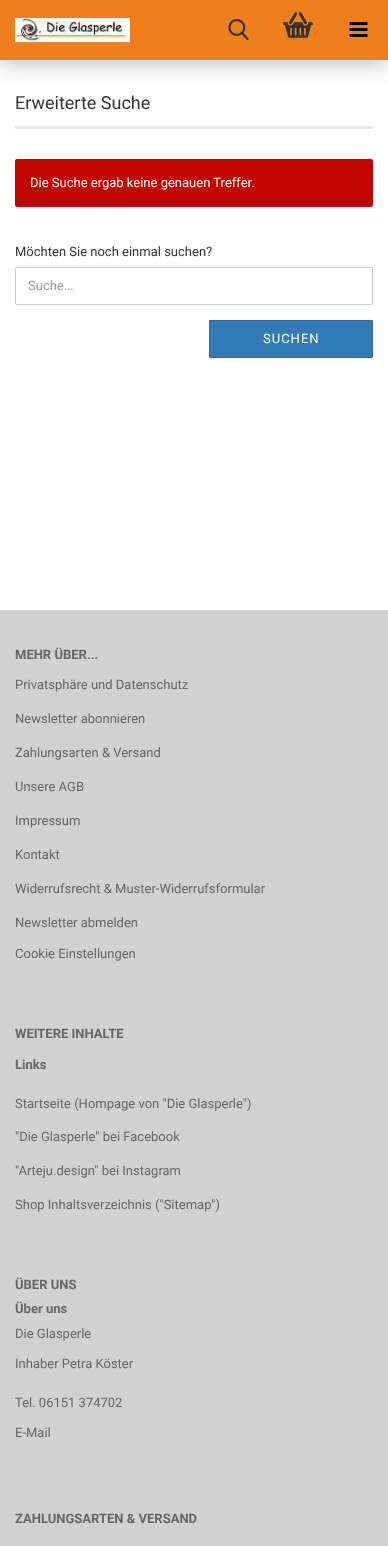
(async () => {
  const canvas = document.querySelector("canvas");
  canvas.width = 388;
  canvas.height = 1546;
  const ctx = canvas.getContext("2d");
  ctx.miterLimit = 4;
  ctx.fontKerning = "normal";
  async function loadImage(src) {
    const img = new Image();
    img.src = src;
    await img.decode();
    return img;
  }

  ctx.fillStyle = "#ffffff";
  ctx.fillRect(0, 0, 388, 1546);
  ctx.fillStyle = "rgba(0, 0, 0, 0.35)";
  ctx.filter = "blur(12.5px)";
  ctx.beginPath();
  ctx.rect(0, 0, 388, 60);
  ctx.fill();
  ctx.filter = "none";
  ctx.fillStyle = "#ef7f1a";
  ctx.fillRect(0, 0, 388, 60);
  ctx.drawImage(await loadImage("img/1.png"), 15, 18, 115, 25);
  ctx.drawImage(await loadImage("img/2.png"), 228, 19, 21, 21);
  ctx.drawImage(await loadImage("img/3.png"), 283, 12, 30, 26);
  ctx.drawImage(await loadImage("img/4.png"), 349, 22, 19, 15);
  ctx.fillStyle = "#e7e7e7";
  ctx.fillRect(15, 126, 358, 3);
  ctx.fillStyle = "#c20400";
  ctx.beginPath();
  ctx.roundRect(15, 159, 358, 48, 2);
  ctx.fill();
  ctx.beginPath();
  ctx.roundRect(15.5, 267.5, 357, 37, 1.5);
  ctx.strokeStyle = "#cccccc";
  ctx.stroke();
  ctx.fillStyle = "#337ab7";
  ctx.beginPath();
  ctx.rect(209.5, 320.5, 163, 37);
  ctx.fill();
  ctx.strokeStyle = "#2d6da3";
  ctx.stroke();
  ctx.fillStyle = "#d1d1d1";
  ctx.fillRect(0, 610, 388, 936);
  ctx.font = "18px Roboto";
  ctx.fillStyle = "#333333";
  ctx.fillText("Erweiterte Suche", 15, 109);
  ctx.font = "13px Roboto";
  ctx.fillStyle = "#ffffff";
  ctx.fillText("Die Suche ergab keine genauen Treffer.", 30, 187);
  ctx.fillStyle = "#333333";
  ctx.fillText("Möchten Sie noch einmal suchen?", 15, 256);
  ctx.fillStyle = "#999999";
  ctx.fillText("Suche...", 28, 290);
  ctx.letterSpacing = "1px";
  ctx.fillStyle = "#ffffff";
  ctx.fillText("SUCHEN", 263, 343);
  ctx.letterSpacing = "0px";
  ctx.font = "bold 13px Roboto";
  ctx.fillStyle = "#666666";
  ctx.fillText("MEHR ÜBER...", 15, 659);
  ctx.font = "13px Roboto";
  for (const [text, x, y] of [
    ["Privatsphäre und Datenschutz", 15, 689],
    ["Newsletter abonnieren", 15, 723],
    ["Zahlungsarten & Versand", 15, 757],
    ["Unsere AGB", 15, 791],
    ["Impressum", 15, 825],
    ["Kontakt", 15, 859],
    ["Widerrufsrecht & Muster-Widerrufsformular", 15, 893],
    ["Newsletter abmelden", 15, 927],
    ["Cookie Einstellungen", 15, 958],
  ]) {
    ctx.fillText(text, x, y);
  }
  ctx.font = "bold 13px Roboto";
  ctx.fillText("WEITERE INHALTE", 15, 1038);
  ctx.fillText("Links", 15, 1069);
  ctx.font = "13px Roboto";
  for (const [text, x, y] of [
    ["Startseite (Hompage von \"Die Glasperle\")", 15, 1108],
    ["\"Die Glasperle\" bei Facebook", 15, 1141],
    ["\"Arteju.design\" bei Instagram", 15, 1175],
    ["Shop Inhaltsverzeichnis (\"Sitemap\")", 15, 1209],
  ]) {
    ctx.fillText(text, x, y);
  }
  ctx.font = "bold 13px Roboto";
  ctx.fillText("ÜBER UNS", 15, 1289);
  ctx.fillText("Über uns", 15, 1313);
  ctx.font = "13px Roboto";
  for (const [text, x, y] of [
    ["Die Glasperle", 15, 1338],
    ["Inhaber Petra Köster", 15, 1368],
    ["Tel. 06151 374702", 15, 1407],
    ["E-Mail", 15, 1437],
  ]) {
    ctx.fillText(text, x, y);
  }
  ctx.font = "bold 13px Roboto";
  ctx.fillText("ZAHLUNGSARTEN & VERSAND", 15, 1523);
})();
